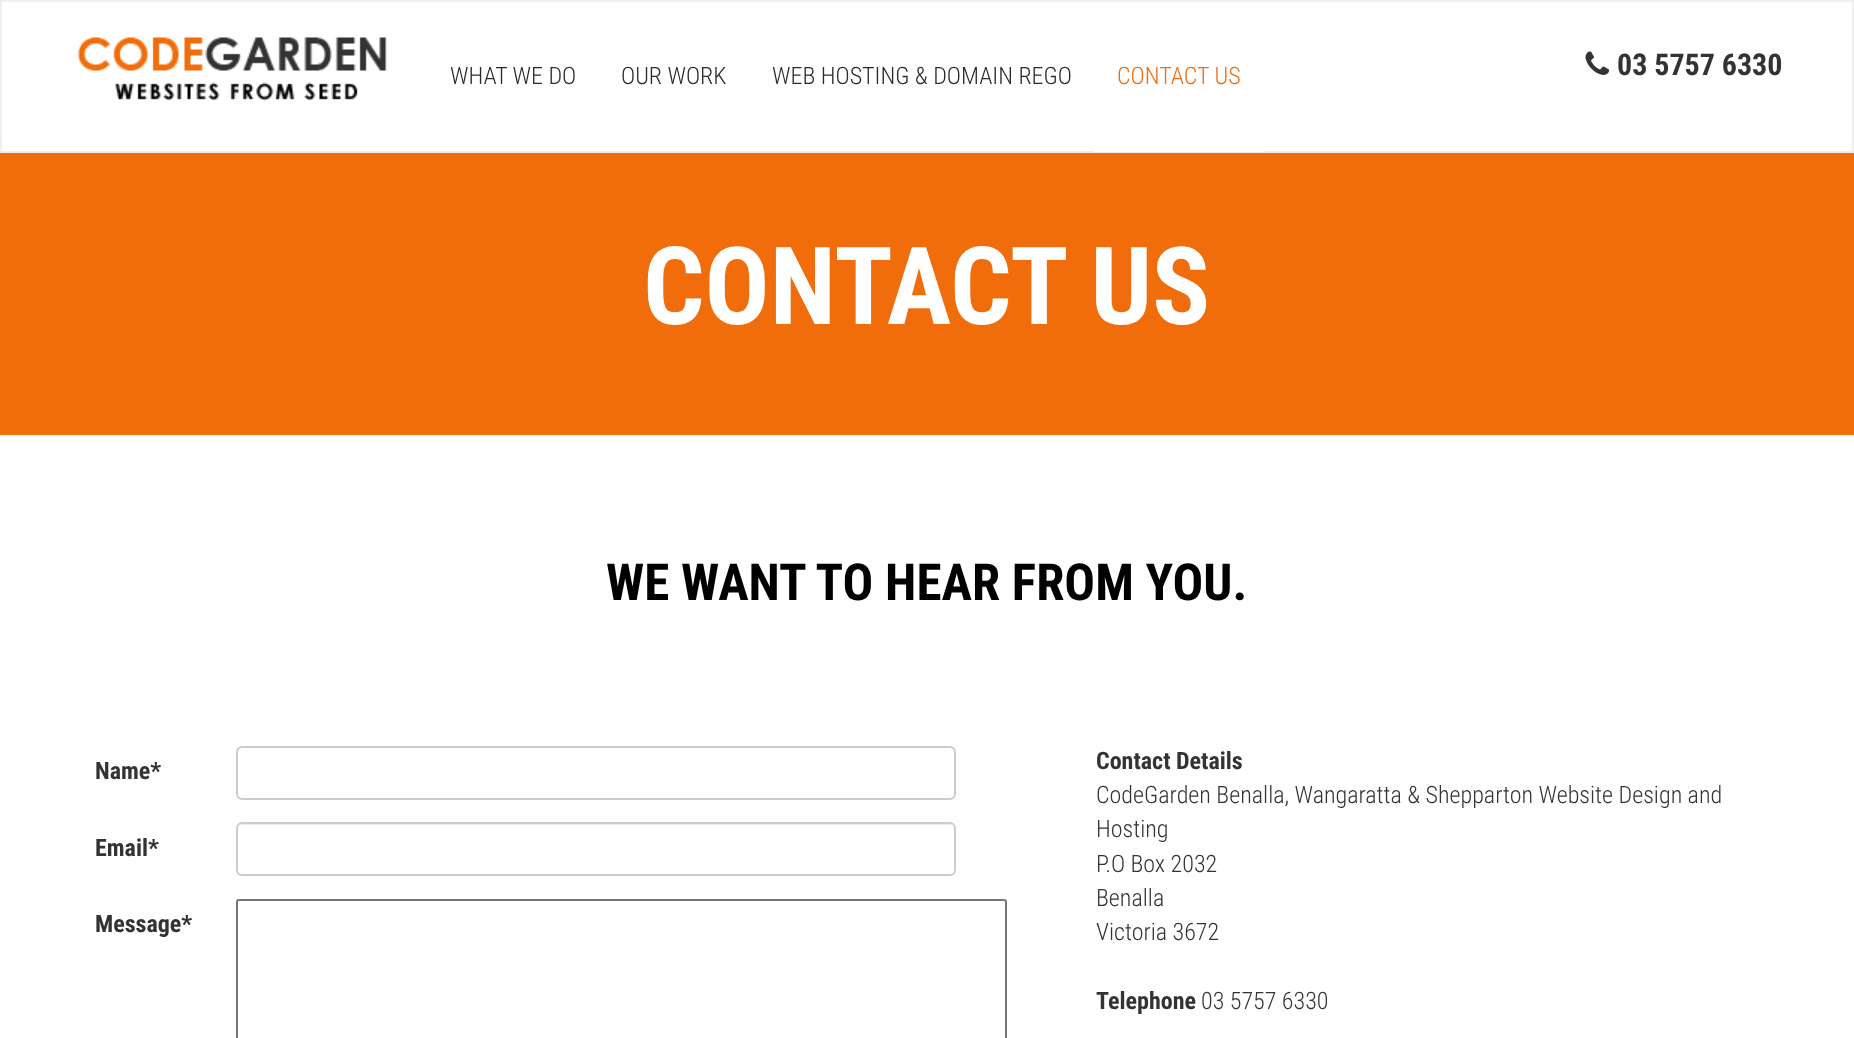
(async () => {
  const canvas = document.querySelector("canvas");
  canvas.width = 1854;
  canvas.height = 1038;
  const ctx = canvas.getContext("2d");
  ctx.miterLimit = 4;
  ctx.fontKerning = "normal";
  async function loadImage(src) {
    const img = new Image();
    img.src = src;
    await img.decode();
    return img;
  }
  let path;

  ctx.fillStyle = "#ffffff";
  ctx.fillRect(0, 0, 1854, 1038);
  ctx.strokeStyle = "#eeeeee";
  ctx.lineWidth = 2;
  ctx.strokeRect(1, 1, 1852, 151);
  ctx.drawImage(await loadImage("img/1.png"), 77, 37, 311, 64);
  ctx.fillRect(1094, 151, 169, 1);
  ctx.drawImage(await loadImage("img/2.png"), 1585, 51, 24, 24);
  ctx.fillStyle = "#f16c0a";
  ctx.fillRect(0, 153, 1854, 282);
  ctx.fillStyle = "#ececec";
  path = new Path2D("M242 748H950C952 748 954 751 954 753C954 750 952 747 949 747H242C239 747 237 750 237 753C237 751 239 748 242 748Z");
  ctx.fill(path);
  ctx.beginPath();
  ctx.roundRect(237, 747, 718, 52, 5);
  ctx.strokeStyle = "#cccccc";
  ctx.stroke();
  path = new Path2D("M242 825H950C952 825 954 827 954 830C954 827 952 824 949 824H242C239 824 237 827 237 830C237 827 239 825 242 825Z");
  ctx.fill(path);
  ctx.beginPath();
  ctx.roundRect(237, 823, 718, 52, 5);
  ctx.stroke();
  ctx.beginPath();
  ctx.roundRect(237, 900, 769, 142, 2);
  ctx.strokeStyle = "#767676";
  ctx.stroke();
  ctx.font = "300 24px Roboto Condensed";
  ctx.fillStyle = "#2a2a2a";
  for (const [text, x, y] of [
    ["WHAT WE DO", 450, 84],
    ["OUR WORK", 621, 84],
    ["WEB HOSTING & DOMAIN REGO", 772, 84],
  ]) {
    ctx.fillText(text, x, y);
  }
  ctx.fillStyle = "#f16c0a";
  ctx.fillText("CONTACT US", 1117, 84);
  ctx.font = "bold 30px Roboto Condensed";
  ctx.fillStyle = "#333333";
  ctx.fillText("03 5757 6330", 1617, 75);
  ctx.font = "bold 108px Roboto Condensed";
  ctx.fillStyle = "#ffffff";
  ctx.fillText("CONTACT US", 643, 324);
  ctx.font = "bold 51px Roboto Condensed";
  ctx.fillStyle = "#000000";
  ctx.fillText("WE WANT TO HEAR FROM YOU.", 606, 600);
  ctx.font = "bold 24px Roboto Condensed";
  ctx.fillStyle = "#333333";
  for (const [text, x, y] of [
    ["Name*", 95, 779],
    ["Email*", 95, 856],
    ["Message*", 95, 932],
    ["Contact Details", 1096, 769],
  ]) {
    ctx.fillText(text, x, y);
  }
  ctx.font = "300 24px Roboto Condensed";
  for (const [text, x, y] of [
    ["CodeGarden Benalla, Wangaratta & Shepparton Website Design and", 1096, 803],
    ["Hosting", 1096, 837],
    ["P.O Box 2032", 1096, 872],
    ["Benalla", 1096, 906],
    ["Victoria 3672", 1096, 940],
  ]) {
    ctx.fillText(text, x, y);
  }
  ctx.font = "bold 24px Roboto Condensed";
  ctx.fillText("Telephone", 1096, 1009);
  ctx.font = "300 24px Roboto Condensed";
  ctx.fillText("03 5757 6330", 1201, 1009);
})();
